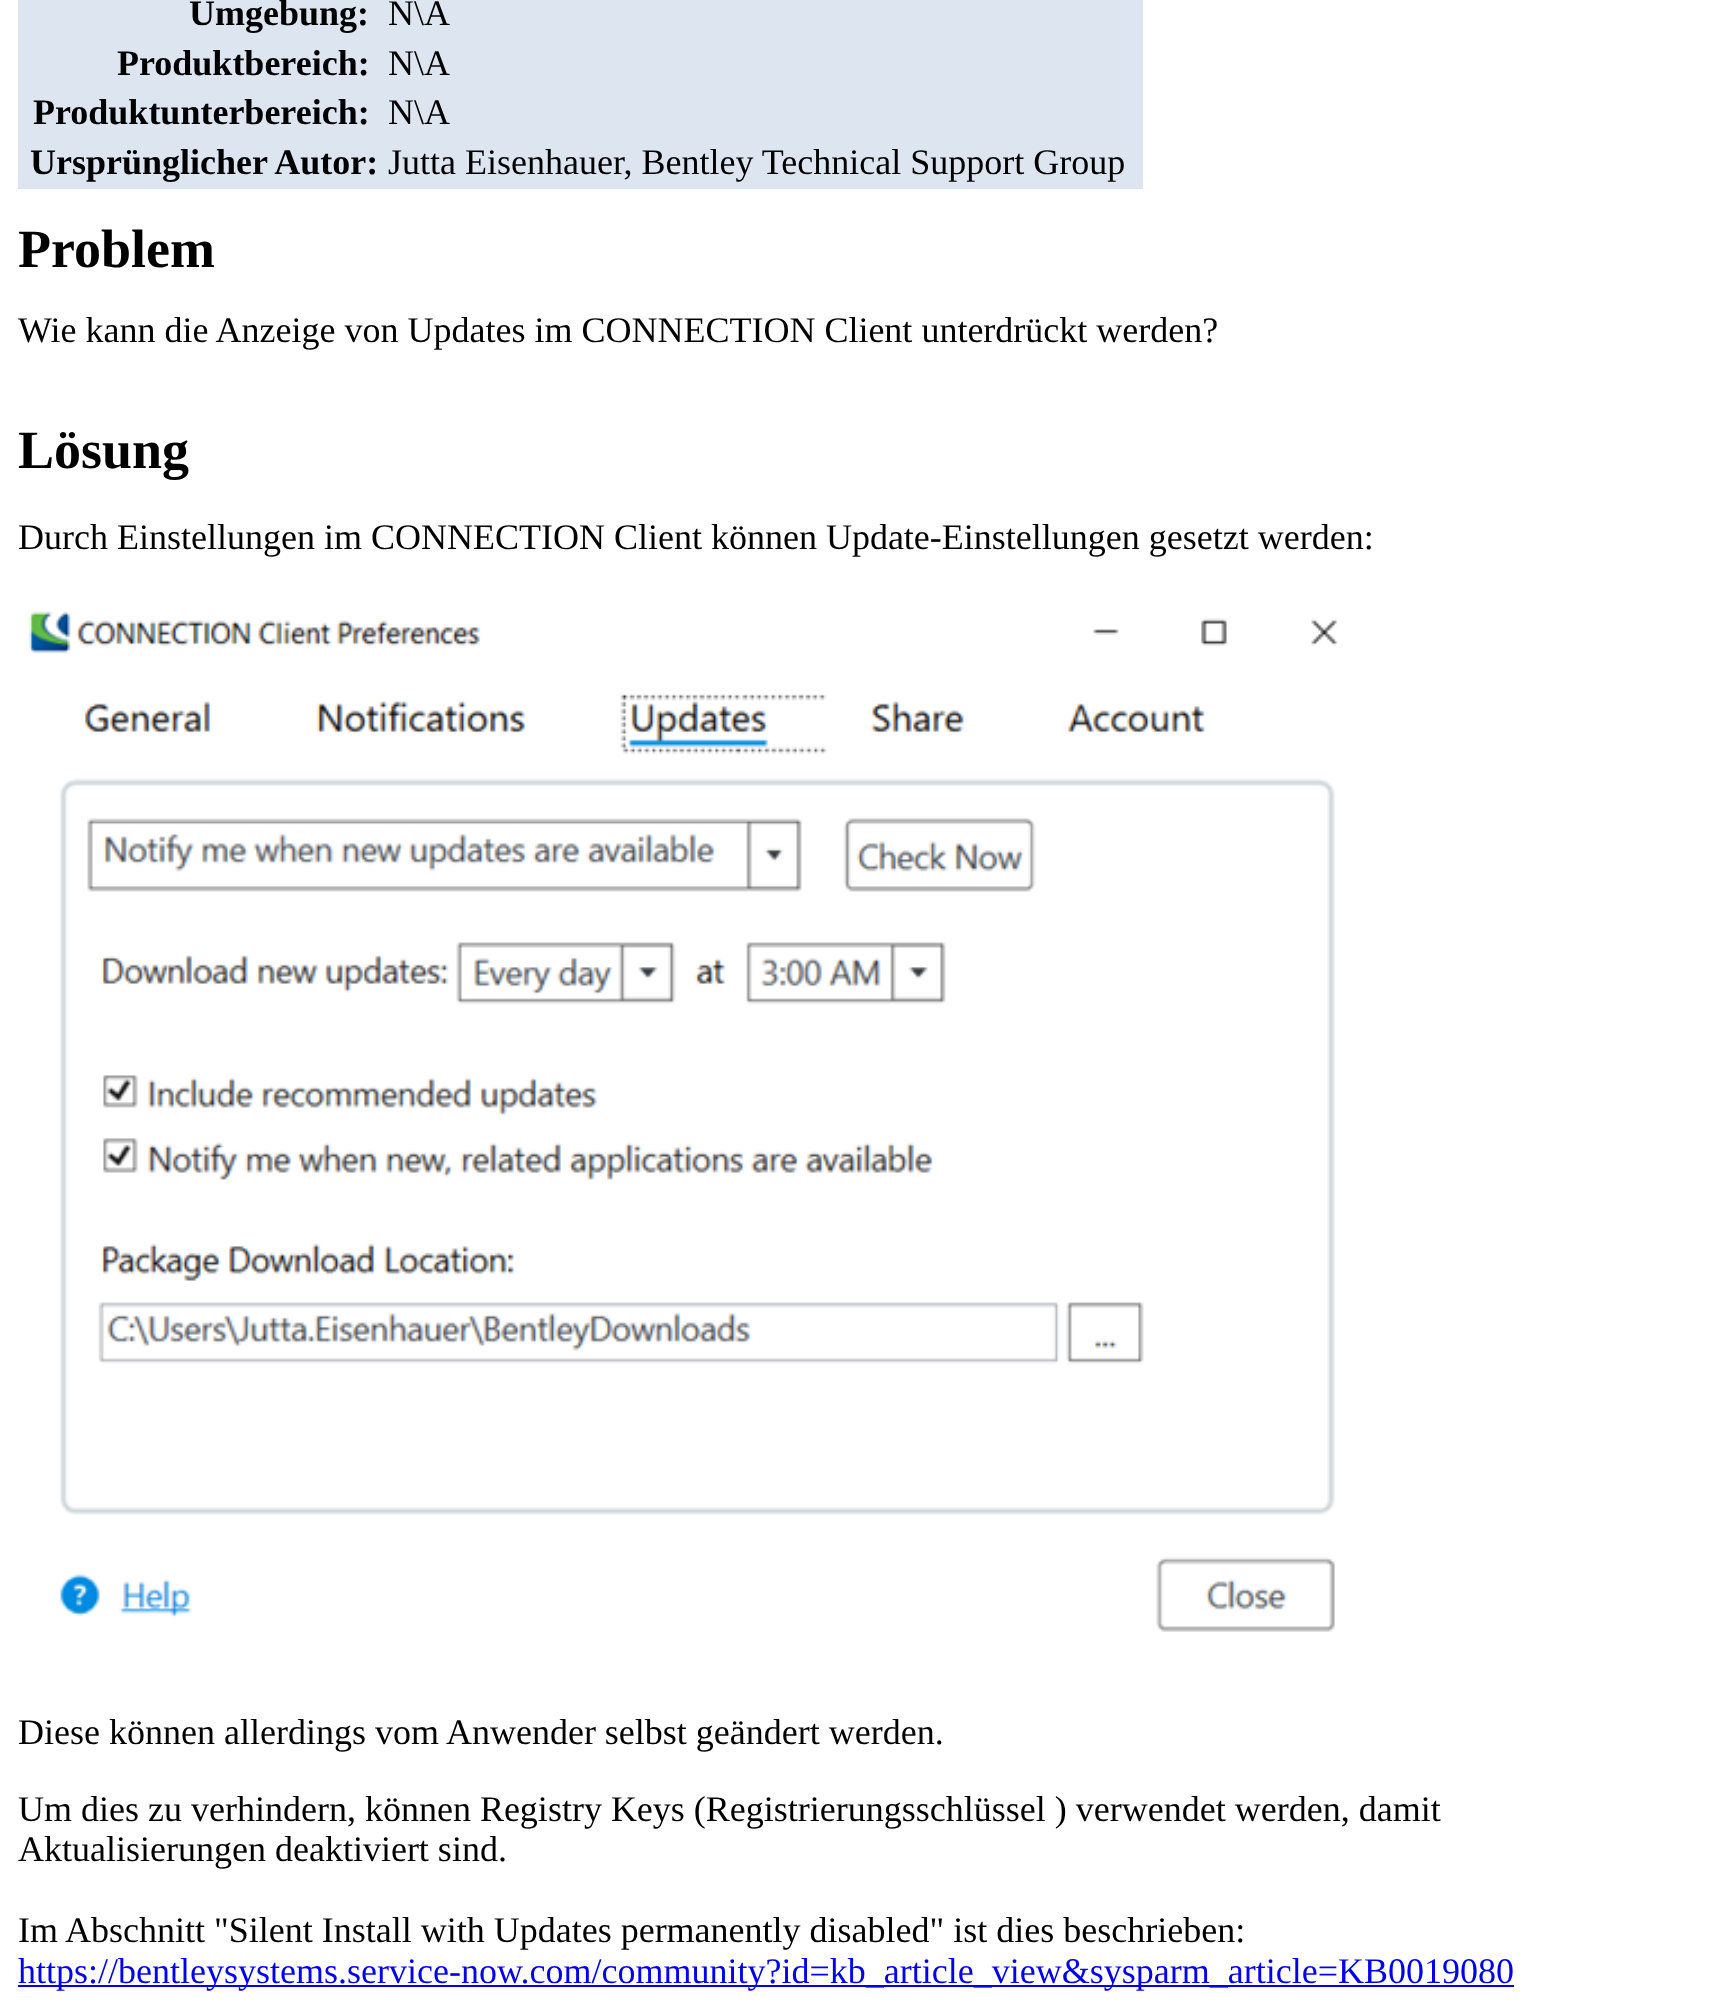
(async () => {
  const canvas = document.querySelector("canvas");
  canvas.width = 1710;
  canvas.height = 2000;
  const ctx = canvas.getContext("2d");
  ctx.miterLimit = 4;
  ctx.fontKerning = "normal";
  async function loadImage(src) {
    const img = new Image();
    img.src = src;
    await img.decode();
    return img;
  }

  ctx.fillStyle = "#ffffff";
  ctx.fillRect(0, 0, 1710, 2000);
  ctx.fillStyle = "#dce5f0";
  ctx.fillRect(18, 0, 1125, 189);
  ctx.drawImage(await loadImage("img/1.png"), 28, 611, 1310, 1021);
  ctx.fillStyle = "#0000ee";
  ctx.fillRect(18, 1985, 1496, 2);
  ctx.font = "bold 36px Liberation Serif";
  ctx.fillStyle = "#000000";
  ctx.fillText("Umgebung:", 189, 25);
  ctx.font = "36px Liberation Serif";
  ctx.fillText("N\\A", 388, 25);
  ctx.font = "bold 36px Liberation Serif";
  ctx.fillText("Produktbereich:", 117, 75);
  ctx.font = "36px Liberation Serif";
  ctx.fillText("N\\A", 388, 75);
  ctx.font = "bold 36px Liberation Serif";
  ctx.fillText("Produktunterbereich:", 33, 124);
  ctx.font = "36px Liberation Serif";
  ctx.fillText("N\\A", 388, 124);
  ctx.font = "bold 36px Liberation Serif";
  ctx.fillText("Ursprünglicher Autor:", 30, 174);
  ctx.font = "36px Liberation Serif";
  ctx.fillText("Jutta Eisenhauer, Bentley Technical Support Group", 388, 174);
  ctx.font = "bold 54px Liberation Serif";
  ctx.fillText("Problem", 18, 267);
  ctx.font = "36px Liberation Serif";
  ctx.fillText("Wie kann die Anzeige von Updates im CONNECTION Client unterdrückt werden?", 18, 342);
  ctx.font = "bold 54px Liberation Serif";
  ctx.fillText("Lösung", 18, 468);
  ctx.font = "36px Liberation Serif";
  for (const [text, x, y] of [
    ["Durch Einstellungen im CONNECTION Client können Update-Einstellungen gesetzt werden:", 18, 549],
    ["Diese können allerdings vom Anwender selbst geändert werden.", 18, 1744],
    ["Um dies zu verhindern, können Registry Keys (Registrierungsschlüssel ) verwendet werden, damit", 18, 1821],
    ["Aktualisierungen deaktiviert sind.", 18, 1861],
    ["Im Abschnitt \"Silent Install with Updates permanently disabled\" ist dies beschrieben:", 18, 1942],
  ]) {
    ctx.fillText(text, x, y);
  }
  ctx.fillStyle = "#0000ee";
  ctx.fillText("https://bentleysystems.service-now.com/community?id=kb_article_view&sysparm_article=KB0019080", 18, 1983);
})();
